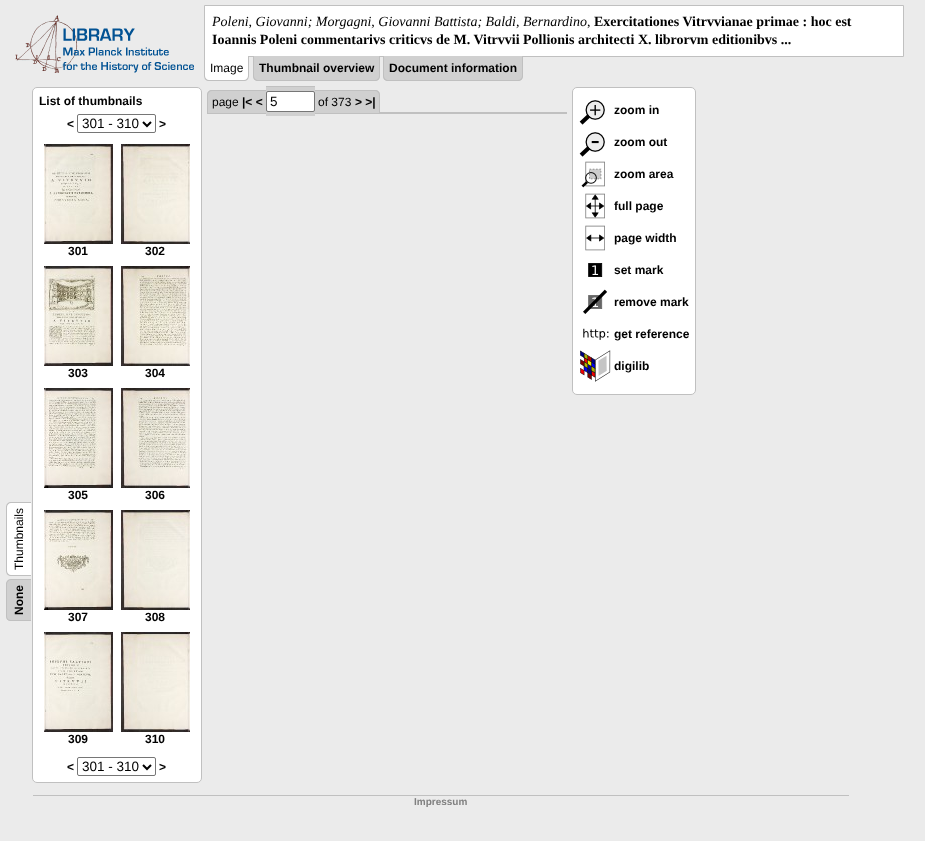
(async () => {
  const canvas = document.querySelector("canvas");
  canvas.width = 925;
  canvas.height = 841;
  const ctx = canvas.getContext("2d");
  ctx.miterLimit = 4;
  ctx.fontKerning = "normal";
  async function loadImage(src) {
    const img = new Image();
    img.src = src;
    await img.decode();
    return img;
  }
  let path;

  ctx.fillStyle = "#ebebeb";
  ctx.fillRect(0, 0, 925, 841);
  ctx.drawImage(await loadImage("img/1.png"), 15, 15, 179, 58);
  ctx.fillStyle = "#ffffff";
  ctx.beginPath();
  ctx.rect(204.5, 5.5, 699, 51);
  ctx.fill();
  ctx.strokeStyle = "#c0c0c0";
  ctx.stroke();
  ctx.beginPath();
  ctx.roundRect(204, 56, 45, 25, [0, 0, 5, 5]);
  ctx.fill();
  ctx.fillStyle = "#c0c0c0";
  path = new Path2D("M204 56H249V76C249 79 247 81 244 81H209C206 81 204 79 204 76ZM205 56H248V76C248 78 246 80 244 80H209C207 80 205 78 205 76Z");
  ctx.fill(path, "evenodd");
  ctx.fillStyle = "#d0d0d0";
  ctx.beginPath();
  ctx.roundRect(253, 56, 127, 25, [0, 0, 5, 5]);
  ctx.fill();
  ctx.fillStyle = "#c0c0c0";
  path = new Path2D("M253 56H380V76C380 79 378 81 375 81H258C255 81 253 79 253 76ZM254 56H379V76C379 78 377 80 375 80H258C256 80 254 78 254 76Z");
  ctx.fill(path, "evenodd");
  ctx.fillStyle = "#d0d0d0";
  ctx.beginPath();
  ctx.roundRect(383, 56, 140, 25, [0, 0, 5, 5]);
  ctx.fill();
  ctx.fillStyle = "#c0c0c0";
  path = new Path2D("M383 56H523V76C523 79 521 81 518 81H388C385 81 383 79 383 76ZM384 56H522V76C522 78 520 80 518 80H388C386 80 384 78 384 76Z");
  ctx.fill(path, "evenodd");
  ctx.fillStyle = "#ffffff";
  path = new Path2D("M6 571V507C6 504 8 502 11 502H31V576H11C8 576 6 574 6 571Z");
  ctx.fill(path);
  ctx.fillStyle = "#c0c0c0";
  path = new Path2D("M6 571V507C6 504 8 502 11 502H31V576H11C8 576 6 574 6 571ZM7 571V507C7 505 9 503 11 503H31V575H11C9 575 7 573 7 571Z");
  ctx.fill(path, "evenodd");
  ctx.fillStyle = "#d0d0d0";
  path = new Path2D("M6 616V584C6 582 8 579 11 579H31V621H11C8 621 6 619 6 616Z");
  ctx.fill(path);
  ctx.fillStyle = "#c0c0c0";
  path = new Path2D("M6 616V584C6 582 8 579 11 579H31V621H11C8 621 6 619 6 616ZM7 616V584C7 582 9 580 11 580H31V620H11C9 620 7 619 7 616Z");
  ctx.fill(path, "evenodd");
  ctx.fillStyle = "#ffffff";
  ctx.beginPath();
  ctx.roundRect(32.5, 87.5, 169, 695, 4.5);
  ctx.fill();
  ctx.stroke();
  ctx.beginPath();
  ctx.roundRect(77.5, 114.5, 78, 18, 1.5);
  ctx.strokeStyle = "#767676";
  ctx.stroke();
  path = new Path2D("M143 122L147 126L151 122");
  ctx.strokeStyle = "#000000";
  ctx.lineWidth = 2;
  ctx.stroke(path);
  ctx.drawImage(await loadImage("img/2.png"), 44, 144, 69, 100);
  ctx.drawImage(await loadImage("img/3.png"), 121, 144, 69, 100);
  ctx.drawImage(await loadImage("img/4.png"), 44, 266, 69, 100);
  ctx.drawImage(await loadImage("img/5.png"), 121, 266, 69, 100);
  ctx.drawImage(await loadImage("img/6.png"), 44, 388, 69, 100);
  ctx.drawImage(await loadImage("img/7.png"), 121, 388, 69, 100);
  ctx.drawImage(await loadImage("img/8.png"), 44, 510, 69, 100);
  ctx.drawImage(await loadImage("img/9.png"), 121, 510, 69, 100);
  ctx.drawImage(await loadImage("img/10.png"), 44, 632, 69, 100);
  ctx.drawImage(await loadImage("img/11.png"), 121, 632, 69, 100);
  ctx.beginPath();
  ctx.roundRect(77.5, 757.5, 78, 18, 1.5);
  ctx.strokeStyle = "#767676";
  ctx.lineWidth = 1;
  ctx.stroke();
  path = new Path2D("M143 765L147 769L151 765");
  ctx.strokeStyle = "#000000";
  ctx.lineWidth = 2;
  ctx.stroke(path);
  ctx.fillStyle = "#c0c0c0";
  ctx.fillRect(207, 112, 360, 2);
  ctx.fillStyle = "#d0d0d0";
  ctx.beginPath();
  ctx.roundRect(207, 90, 35, 23, [5, 0, 0, 0]);
  ctx.fill();
  ctx.fillStyle = "#c0c0c0";
  path = new Path2D("M212 90H242V113H207V95C207 92 209 90 212 90ZM212 91H242V113H208V95C208 93 210 91 212 91Z");
  ctx.fill(path, "evenodd");
  for (const [x, y, w, h, color] of [
    [242, 91, 10, 22, "#d0d0d0"],
    [242, 90, 10, 1, "#c0c0c0"],
    [252, 90, 14, 23, "#d0d0d0"],
    [252, 90, 14, 1, "#c0c0c0"],
    [266, 87, 49, 29, "#d0d0d0"],
    [266, 86, 49, 1, "#c0c0c0"],
    [315, 90, 3, 23, "#d0d0d0"],
    [315, 90, 40, 1, "#c0c0c0"],
    [318, 91, 37, 22, "#d0d0d0"],
    [355, 90, 10, 23, "#d0d0d0"],
    [355, 90, 10, 1, "#c0c0c0"],
  ]) {
    ctx.fillStyle = color;
    ctx.fillRect(x, y, w, h);
  }
  ctx.fillStyle = "#d0d0d0";
  ctx.beginPath();
  ctx.roundRect(365, 90, 15, 23, [0, 5, 0, 0]);
  ctx.fill();
  ctx.fillStyle = "#c0c0c0";
  path = new Path2D("M365 90H375C378 90 380 92 380 95V113H365ZM365 91H375C377 91 379 93 379 95V113H365Z");
  ctx.fill(path, "evenodd");
  ctx.fillStyle = "#ffffff";
  ctx.beginPath();
  ctx.roundRect(266.5, 91.5, 48, 20, 1.5);
  ctx.fill();
  ctx.strokeStyle = "#767676";
  ctx.lineWidth = 1;
  ctx.stroke();
  ctx.beginPath();
  ctx.roundRect(572.5, 87.5, 123, 307, 4.5);
  ctx.fill();
  ctx.strokeStyle = "#c0c0c0";
  ctx.stroke();
  ctx.drawImage(await loadImage("img/12.png"), 579, 100, 26, 25);
  ctx.drawImage(await loadImage("img/13.png"), 579, 132, 26, 25);
  ctx.drawImage(await loadImage("img/14.png"), 581, 161, 24, 27);
  ctx.drawImage(await loadImage("img/15.png"), 585, 193, 20, 26);
  ctx.drawImage(await loadImage("img/16.png"), 585, 225, 20, 26);
  ctx.drawImage(await loadImage("img/17.png"), 588, 263, 15, 14);
  ctx.drawImage(await loadImage("img/18.png"), 583, 289, 24, 25);
  ctx.drawImage(await loadImage("img/19.png"), 583, 328, 26, 12);
  ctx.drawImage(await loadImage("img/20.png"), 580, 350, 31, 32);
  ctx.fillStyle = "#c0c0c0";
  ctx.fillRect(33, 795, 816, 1);
  ctx.font = "italic 14px Liberation Serif";
  ctx.fillStyle = "#000000";
  ctx.fillText("Poleni, Giovanni; Morgagni, Giovanni Battista; Baldi, Bernardino", 212, 26);
  ctx.font = "14px Liberation Serif";
  ctx.fillText(",", 587, 26);
  ctx.font = "bold 14px Liberation Serif";
  ctx.fillText("Exercitationes Vitrvvianae primae : hoc est", 594, 26);
  ctx.fillText("Ioannis Poleni commentarivs criticvs de M. Vitrvvii Pollionis architecti X. librorvm editionibvs ...", 212, 44);
  ctx.font = "12px Liberation Sans";
  ctx.fillText("Image", 210, 72);
  ctx.font = "bold 12px Liberation Sans";
  ctx.fillText("Thumbnail overview", 259, 72);
  ctx.fillText("Document information", 389, 72);
  ctx.font = "12px Liberation Sans";
  ctx.save();
  ctx.translate(23, 570);
  ctx.rotate(-90 * Math.PI / 180);
  ctx.fillText("Thumbnails", 0, 0);
  ctx.restore();
  ctx.font = "bold 12px Liberation Sans";
  ctx.save();
  ctx.translate(23, 615);
  ctx.rotate(-90 * Math.PI / 180);
  ctx.fillText("None", 0, 0);
  ctx.restore();
  ctx.fillText("List of thumbnails", 39, 105);
  ctx.fillText("<", 67, 128);
  ctx.font = "13.5px Liberation Sans";
  ctx.fillText("301 - 310", 82, 128);
  ctx.font = "bold 12px Liberation Sans";
  for (const [text, x, y] of [
    [">", 159, 128],
    ["301", 68, 255],
    ["302", 145, 255],
    ["303", 68, 377],
    ["304", 145, 377],
    ["305", 68, 499],
    ["306", 145, 499],
    ["307", 68, 621],
    ["308", 145, 621],
    ["309", 68, 743],
    ["310", 145, 743],
    ["<", 67, 771],
  ]) {
    ctx.fillText(text, x, y);
  }
  ctx.font = "13.5px Liberation Sans";
  ctx.fillText("301 - 310", 82, 771);
  ctx.font = "bold 12px Liberation Sans";
  ctx.fillText(">", 159, 771);
  ctx.font = "12px Liberation Sans";
  ctx.fillText("page", 212, 106);
  ctx.font = "bold 12px Liberation Sans";
  ctx.fillText("|< <", 242, 106);
  ctx.font = "13.5px Liberation Sans";
  ctx.fillText("5", 270, 106);
  ctx.font = "12px Liberation Sans";
  ctx.fillText("of 373", 318, 106);
  ctx.font = "bold 12px Liberation Sans";
  for (const [text, x, y] of [
    ["> >|", 355, 106],
    ["zoom in", 614, 114],
    ["zoom out", 614, 146],
    ["zoom area", 614, 178],
    ["full page", 614, 210],
    ["page width", 614, 242],
    ["set mark", 614, 274],
    ["remove mark", 614, 306],
    ["get reference", 614, 338],
    ["digilib", 614, 370],
  ]) {
    ctx.fillText(text, x, y);
  }
  ctx.font = "bold 10px Liberation Sans";
  ctx.fillStyle = "#808080";
  ctx.fillText("Impressum", 414, 805);
})();
